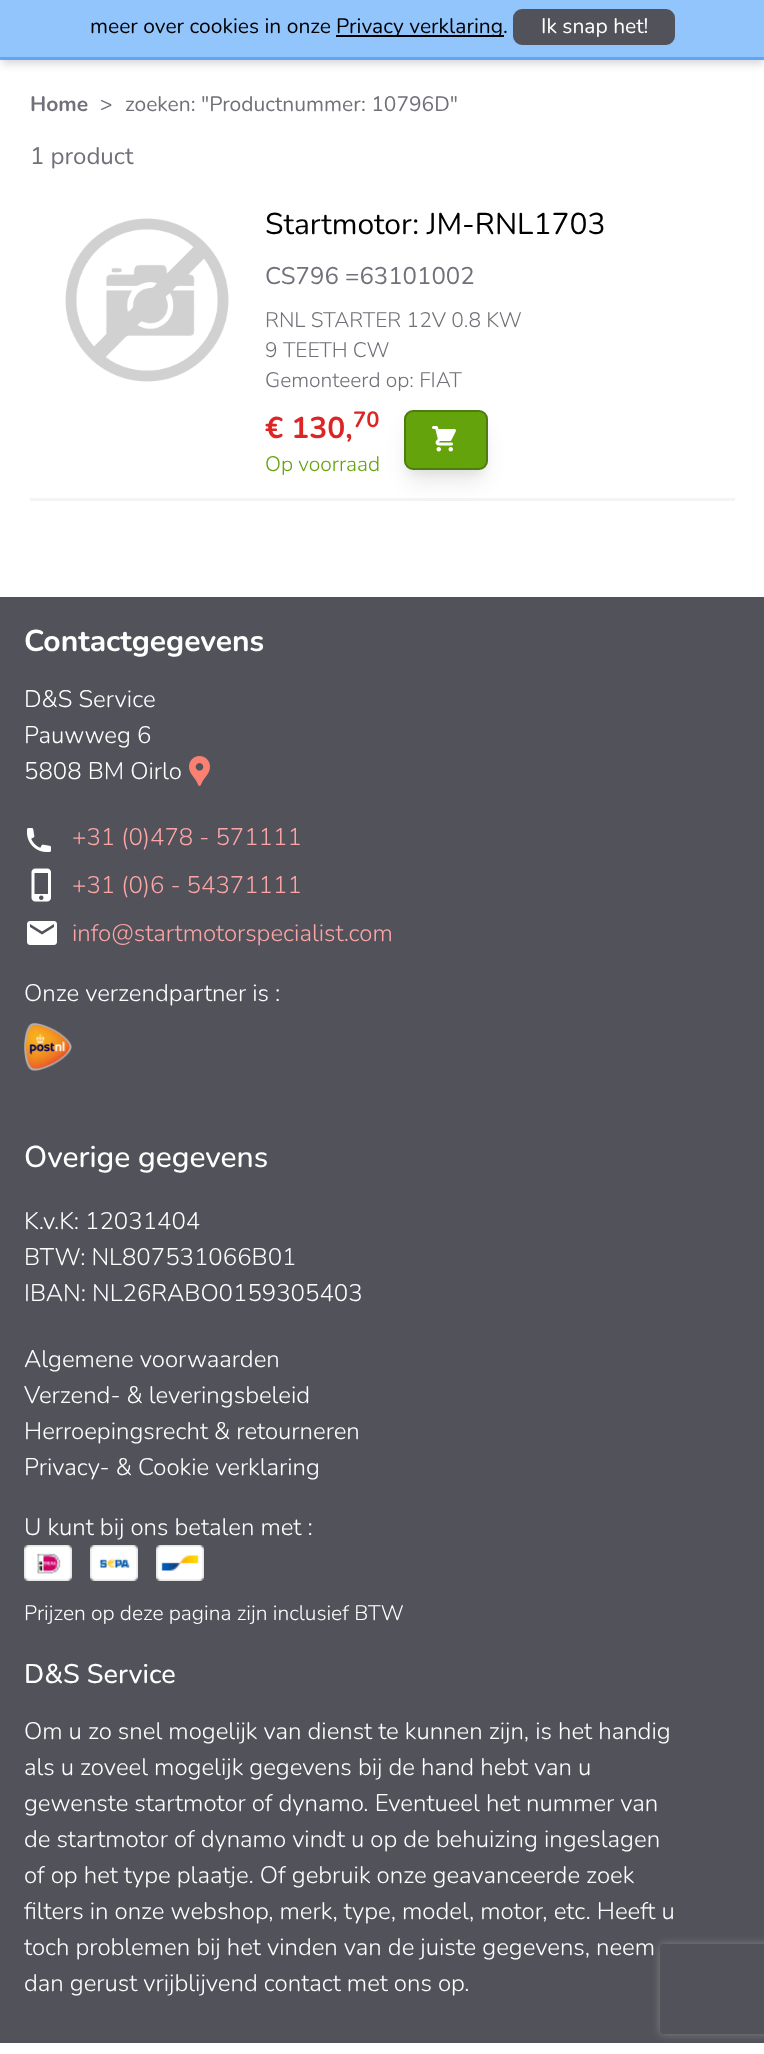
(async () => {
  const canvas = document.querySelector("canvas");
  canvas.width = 764;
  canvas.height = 2054;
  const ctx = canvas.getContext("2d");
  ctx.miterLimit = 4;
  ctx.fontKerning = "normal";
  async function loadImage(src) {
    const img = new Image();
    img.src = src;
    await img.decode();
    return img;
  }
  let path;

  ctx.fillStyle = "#ffffff";
  ctx.fillRect(0, 0, 764, 2054);
  ctx.fillStyle = "rgba(0, 0, 0, 0.06)";
  ctx.filter = "blur(3px)";
  ctx.beginPath();
  ctx.rect(2, -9, 762, 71);
  ctx.fill();
  ctx.filter = "none";
  ctx.fillStyle = "rgba(0, 0, 0, 0.1)";
  ctx.filter = "blur(4.5px)";
  ctx.beginPath();
  ctx.rect(2, -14, 762, 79);
  ctx.fill();
  ctx.filter = "none";
  for (const [x, y, w, h, color] of [
    [0, 0, 764, 57, "#93c5fd"],
    [0, 57, 764, 3, "#60a5fa"],
    [336, 35, 168, 2, "#000000"],
  ]) {
    ctx.fillStyle = color;
    ctx.fillRect(x, y, w, h);
  }
  ctx.fillStyle = "#52525b";
  ctx.beginPath();
  ctx.roundRect(514.5, 10.5, 159, 33, 7.5);
  ctx.fill();
  ctx.strokeStyle = "#52525b";
  ctx.lineWidth = 3;
  ctx.stroke();
  ctx.fillStyle = "#f4f4f5";
  ctx.fillRect(30, 498, 705, 3);
  ctx.drawImage(await loadImage("img/1.png"), 65, 218, 164, 164);
  ctx.fillStyle = "rgba(0, 0, 0, 0.05)";
  ctx.filter = "blur(4.5px)";
  ctx.beginPath();
  ctx.roundRect(407, 419, 78, 54, 6);
  ctx.fill();
  ctx.filter = "none";
  ctx.fillStyle = "rgba(0, 0, 0, 0.1)";
  ctx.filter = "blur(11px)";
  ctx.beginPath();
  ctx.roundRect(408, 429, 75, 51, 5);
  ctx.fill();
  ctx.filter = "none";
  ctx.fillStyle = "#65a30d";
  ctx.beginPath();
  ctx.roundRect(405, 411, 82, 58, 8);
  ctx.fill();
  ctx.strokeStyle = "#4d7c0f";
  ctx.lineWidth = 2;
  ctx.stroke();
  ctx.drawImage(await loadImage("img/2.png"), 432, 426, 24, 26);
  ctx.fillStyle = "#52525b";
  ctx.fillRect(0, 597, 764, 1446);
  ctx.drawImage(await loadImage("img/3.png"), 189, 756, 21, 30);
  ctx.drawImage(await loadImage("img/4.png"), 27, 828, 24, 24);
  ctx.drawImage(await loadImage("img/5.png"), 31, 868, 20, 34);
  ctx.drawImage(await loadImage("img/6.png"), 27, 921, 30, 24);
  ctx.drawImage(await loadImage("img/7.png"), 24, 1023, 48, 48);
  ctx.drawImage(await loadImage("img/8.png"), 24, 1545, 48, 36);
  ctx.drawImage(await loadImage("img/9.png"), 90, 1545, 48, 36);
  ctx.drawImage(await loadImage("img/10.png"), 156, 1545, 48, 36);
  ctx.save();
  path = new Path2D("M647 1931H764V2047H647ZM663 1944H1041C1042.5 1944 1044 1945.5 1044 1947V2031C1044 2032.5 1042.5 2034 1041 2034H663C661.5 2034 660 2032.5 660 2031V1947C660 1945.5 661.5 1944 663 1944Z");
  ctx.clip(path, "evenodd");
  ctx.fillStyle = "#808080";
  ctx.filter = "blur(4px)";
  ctx.beginPath();
  ctx.roundRect(660, 1944, 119, 90, 3);
  ctx.fill();
  ctx.filter = "none";
  ctx.restore();
  ctx.font = "21px Nunito";
  ctx.fillStyle = "#000000";
  ctx.fillText("meer over cookies in onze", 90, 33);
  ctx.fillText("Privacy verklaring.", 336, 33);
  ctx.fillStyle = "#ffffff";
  ctx.fillText("Ik snap het!", 541, 33);
  ctx.font = "bold 21px Nunito";
  ctx.fillStyle = "#71717a";
  ctx.fillText("Home", 30, 111);
  ctx.font = "21px Nunito";
  ctx.fillText(">", 100, 111);
  ctx.fillText("zoeken: \"Productnummer: 10796D\"", 125, 111);
  ctx.font = "24px Nunito";
  ctx.fillText("1 product", 30, 164);
  ctx.font = "30px Nunito";
  ctx.fillStyle = "#000000";
  ctx.fillText("Startmotor: JM-RNL1703", 265, 234);
  ctx.font = "24px Nunito";
  ctx.fillStyle = "#71717a";
  ctx.fillText("CS796 =63101002", 265, 284);
  ctx.font = "300 21px Nunito";
  for (const [text, x, y] of [
    ["RNL STARTER 12V 0.8 KW", 265, 327],
    ["9 TEETH CW", 265, 357],
    ["Gemonteerd op: FIAT", 265, 387],
  ]) {
    ctx.fillText(text, x, y);
  }
  ctx.font = "bold 30px Nunito";
  ctx.fillStyle = "#dc2626";
  ctx.fillText("€ 130,", 265, 438);
  ctx.font = "bold 22px Nunito";
  ctx.fillText("70", 353, 427);
  ctx.font = "300 21px Nunito";
  ctx.fillStyle = "#65a30d";
  ctx.fillText("Op voorraad", 265, 471);
  ctx.font = "bold 30px Nunito";
  ctx.fillStyle = "#ffffff";
  ctx.fillText("Contactgegevens", 24, 651);
  ctx.font = "300 24px Nunito";
  for (const [text, x, y] of [
    ["D&S Service", 24, 707],
    ["Pauwweg 6", 24, 743],
    ["5808 BM Oirlo", 24, 779],
  ]) {
    ctx.fillText(text, x, y);
  }
  ctx.fillStyle = "#fca5a5";
  for (const [text, x, y] of [
    ["+31 (0)478 - 571111", 72, 845],
    ["+31 (0)6 - 54371111", 72, 893],
    ["info@startmotorspecialist.com", 72, 941],
  ]) {
    ctx.fillText(text, x, y);
  }
  ctx.fillStyle = "#ffffff";
  ctx.fillText("Onze verzendpartner is :", 24, 1001);
  ctx.font = "500 30px Nunito";
  ctx.fillText("Overige gegevens", 24, 1167);
  ctx.font = "300 24px Nunito";
  for (const [text, x, y] of [
    ["K.v.K: 12031404", 24, 1229],
    ["BTW: NL807531066B01", 24, 1265],
    ["IBAN: NL26RABO0159305403", 24, 1301],
    ["Algemene voorwaarden", 24, 1367],
    ["Verzend- & leveringsbeleid", 24, 1403],
    ["Herroepingsrecht & retourneren", 24, 1439],
    ["Privacy- & Cookie verklaring", 24, 1475],
    ["U kunt bij ons betalen met :", 24, 1535],
  ]) {
    ctx.fillText(text, x, y);
  }
  ctx.font = "300 21px Nunito";
  ctx.fillText("Prijzen op deze pagina zijn inclusief BTW", 24, 1620);
  ctx.font = "500 27px Nunito";
  ctx.fillText("D&S Service", 24, 1683);
  ctx.font = "300 24px Nunito";
  for (const [text, x, y] of [
    ["Om u zo snel mogelijk van dienst te kunnen zijn, is het handig", 24, 1739],
    ["als u zoveel mogelijk gegevens bij de hand hebt van u", 24, 1775],
    ["gewenste startmotor of dynamo. Eventueel het nummer van", 24, 1811],
    ["de startmotor of dynamo vindt u op de behuizing ingeslagen", 24, 1847],
    ["of op het type plaatje. Of gebruik onze geavanceerde zoek", 24, 1883],
    ["filters in onze webshop, merk, type, model, motor, etc. Heeft u", 24, 1919],
    ["toch problemen bij het vinden van de juiste gegevens, neem", 24, 1955],
    ["dan gerust vrijblijvend contact met ons op.", 24, 1991],
  ]) {
    ctx.fillText(text, x, y);
  }
})();
